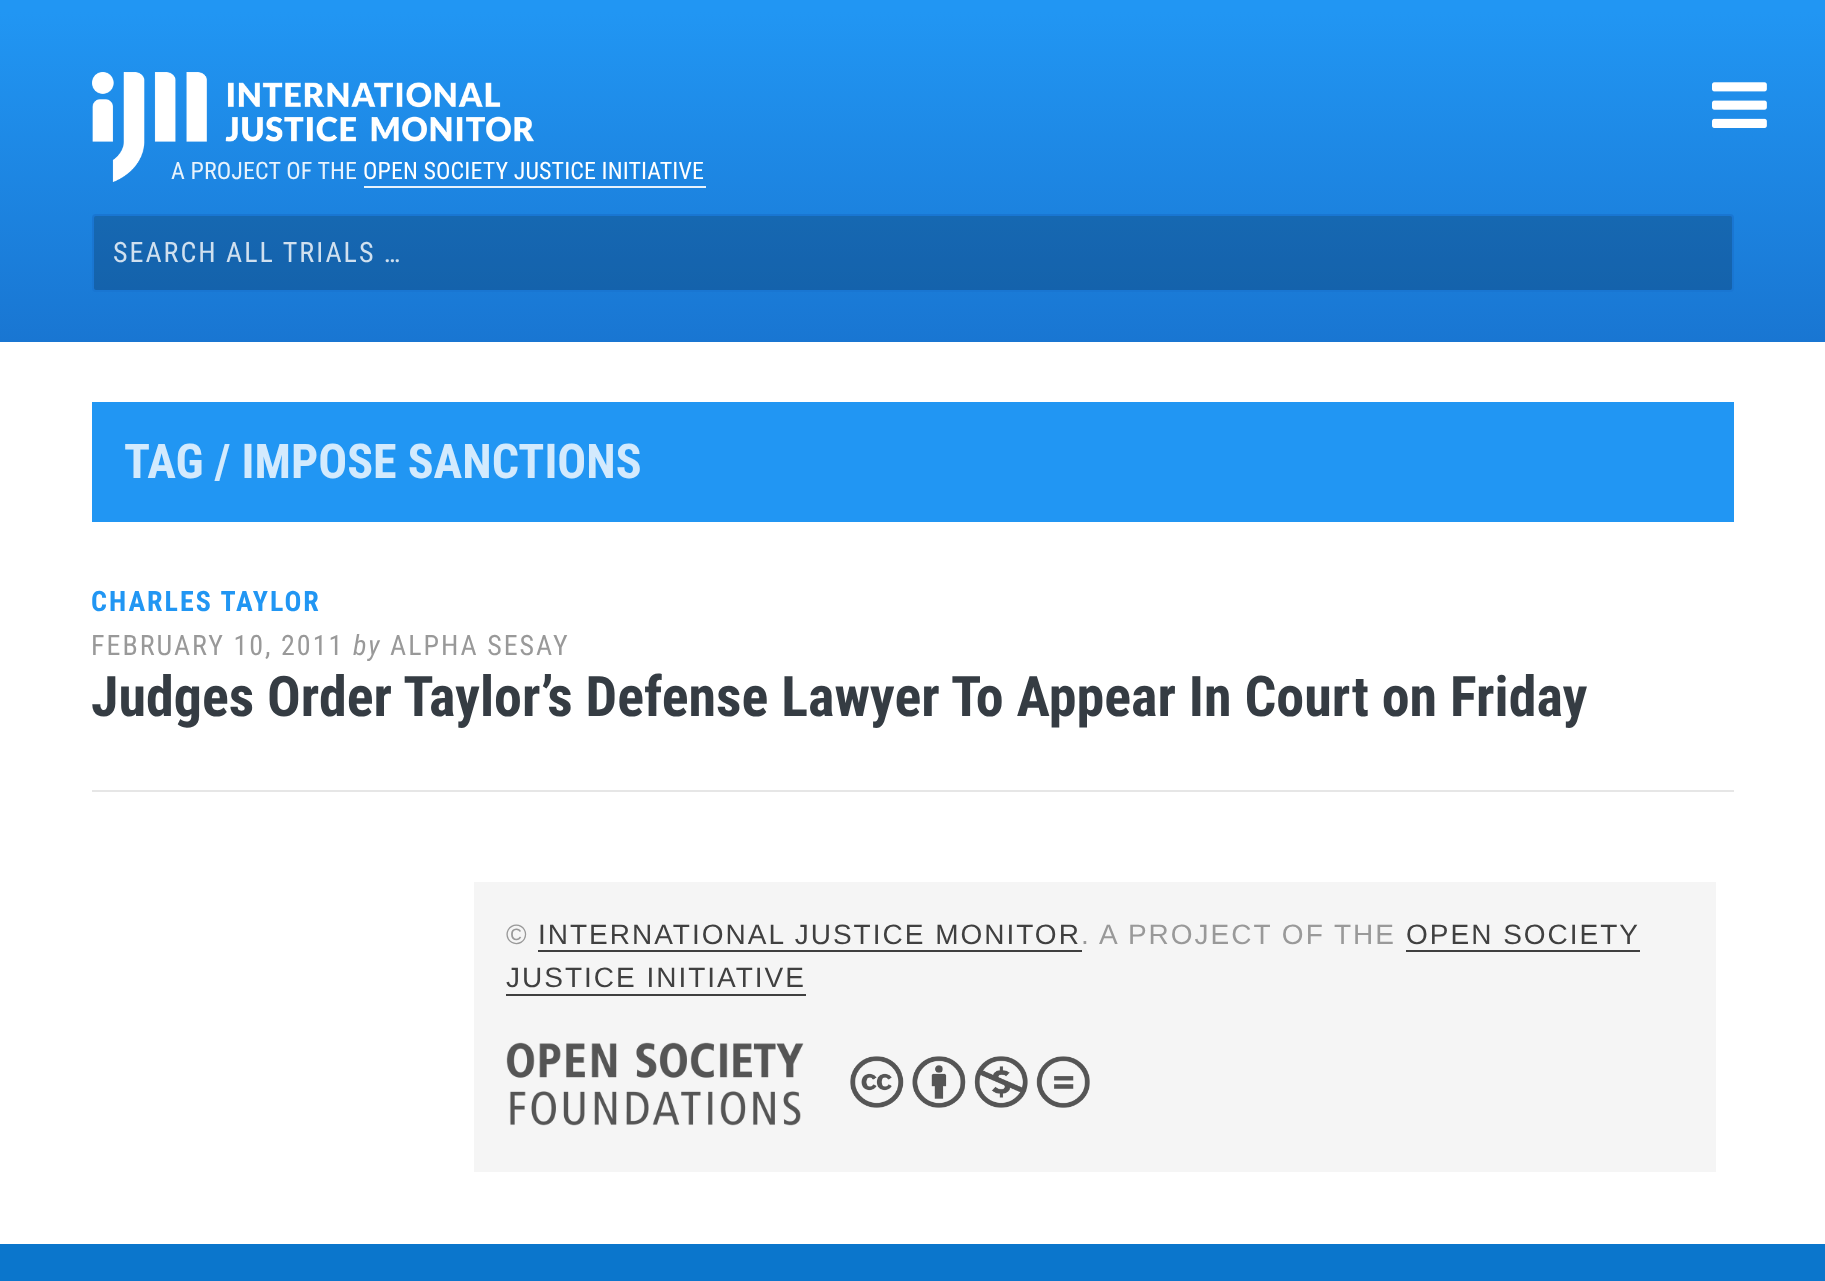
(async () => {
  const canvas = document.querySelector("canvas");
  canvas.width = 1825;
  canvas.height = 1281;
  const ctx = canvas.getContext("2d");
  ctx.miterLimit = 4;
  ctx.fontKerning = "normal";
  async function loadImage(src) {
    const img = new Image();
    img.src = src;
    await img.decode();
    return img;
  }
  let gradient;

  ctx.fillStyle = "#0b76cc";
  ctx.fillRect(0, 0, 1825, 1281);
  ctx.fillStyle = "#ffffff";
  ctx.fillRect(0, 342, 1825, 902);
  gradient = ctx.createLinearGradient(913, 12, 913, 342);
  gradient.addColorStop(0, "#2196f3");
  gradient.addColorStop(1, "#1976d2");
  ctx.fillStyle = gradient;
  ctx.fillRect(0, 12, 1825, 330);
  ctx.fillStyle = "#2196f3";
  ctx.fillRect(0, 0, 1825, 12);
  ctx.drawImage(await loadImage("img/1.png"), 1712, 82, 55, 46);
  ctx.drawImage(await loadImage("img/2.png"), 92, 72, 442, 110);
  ctx.fillStyle = "#e8f3fc";
  ctx.fillRect(364, 186, 342, 2);
  ctx.fillStyle = "rgba(0, 0, 0, 0.2)";
  ctx.beginPath();
  ctx.roundRect(93, 215, 1640, 76, 3);
  ctx.fill();
  ctx.strokeStyle = "#1976d2";
  ctx.lineWidth = 2;
  ctx.stroke();
  for (const [x, y, w, h, color] of [
    [92, 402, 1642, 120, "#2196f3"],
    [92, 790, 1642, 2, "#e6e6e6"],
    [474, 882, 1242, 290, "#f5f5f5"],
    [538, 950, 544, 2, "#404040"],
    [1406, 950, 234, 2, "#404040"],
    [506, 994, 300, 2, "#404040"],
  ]) {
    ctx.fillStyle = color;
    ctx.fillRect(x, y, w, h);
  }
  ctx.drawImage(await loadImage("img/3.png"), 506, 1042, 298, 84);
  ctx.drawImage(await loadImage("img/4.png"), 850, 1056, 240, 52);
  ctx.letterSpacing = "0.1px";
  ctx.font = "24px Roboto Condensed";
  ctx.fillStyle = "#e8f3fc";
  ctx.fillText("A PROJECT OF THE", 171, 179);
  ctx.fillStyle = "#ffffff";
  ctx.fillText("OPEN SOCIETY JUSTICE INITIATIVE", 363, 179);
  ctx.letterSpacing = "2px";
  ctx.font = "28px Roboto Condensed";
  ctx.fillStyle = "#d0e0ef";
  ctx.fillText("SEARCH ALL TRIALS …", 113, 262);
  ctx.letterSpacing = "0px";
  ctx.font = "bold 48px Roboto Condensed";
  ctx.fillStyle = "#d3eafd";
  ctx.fillText("TAG / IMPOSE SANCTIONS", 124, 478);
  ctx.letterSpacing = "2px";
  ctx.font = "bold 28px Roboto Condensed";
  ctx.fillStyle = "#2196f3";
  ctx.fillText("CHARLES TAYLOR", 91, 611);
  ctx.font = "28px Roboto Condensed";
  ctx.fillStyle = "#999999";
  ctx.fillText("FEBRUARY 10, 2011", 91, 655);
  ctx.font = "italic 28px Roboto Condensed";
  ctx.fillText("by", 353, 655);
  ctx.font = "28px Roboto Condensed";
  ctx.fillText("ALPHA SESAY", 390, 655);
  ctx.letterSpacing = "0px";
  ctx.font = "bold 56px Roboto Condensed";
  ctx.fillStyle = "#353c43";
  ctx.fillText("Judges Order Taylor’s Defense Lawyer To Appear In Court on Friday", 91, 716);
  ctx.letterSpacing = "2px";
  ctx.font = "28px Liberation Sans";
  ctx.fillStyle = "#999999";
  ctx.fillText("©", 506, 944);
  ctx.fillStyle = "#404040";
  ctx.fillText("INTERNATIONAL JUSTICE MONITOR", 538, 944);
  ctx.fillStyle = "#999999";
  ctx.fillText(".", 1081, 944);
  ctx.fillText("A PROJECT OF THE", 1099, 944);
  ctx.fillStyle = "#404040";
  ctx.fillText("OPEN SOCIETY", 1406, 944);
  ctx.fillText("JUSTICE INITIATIVE", 506, 987);
})();
